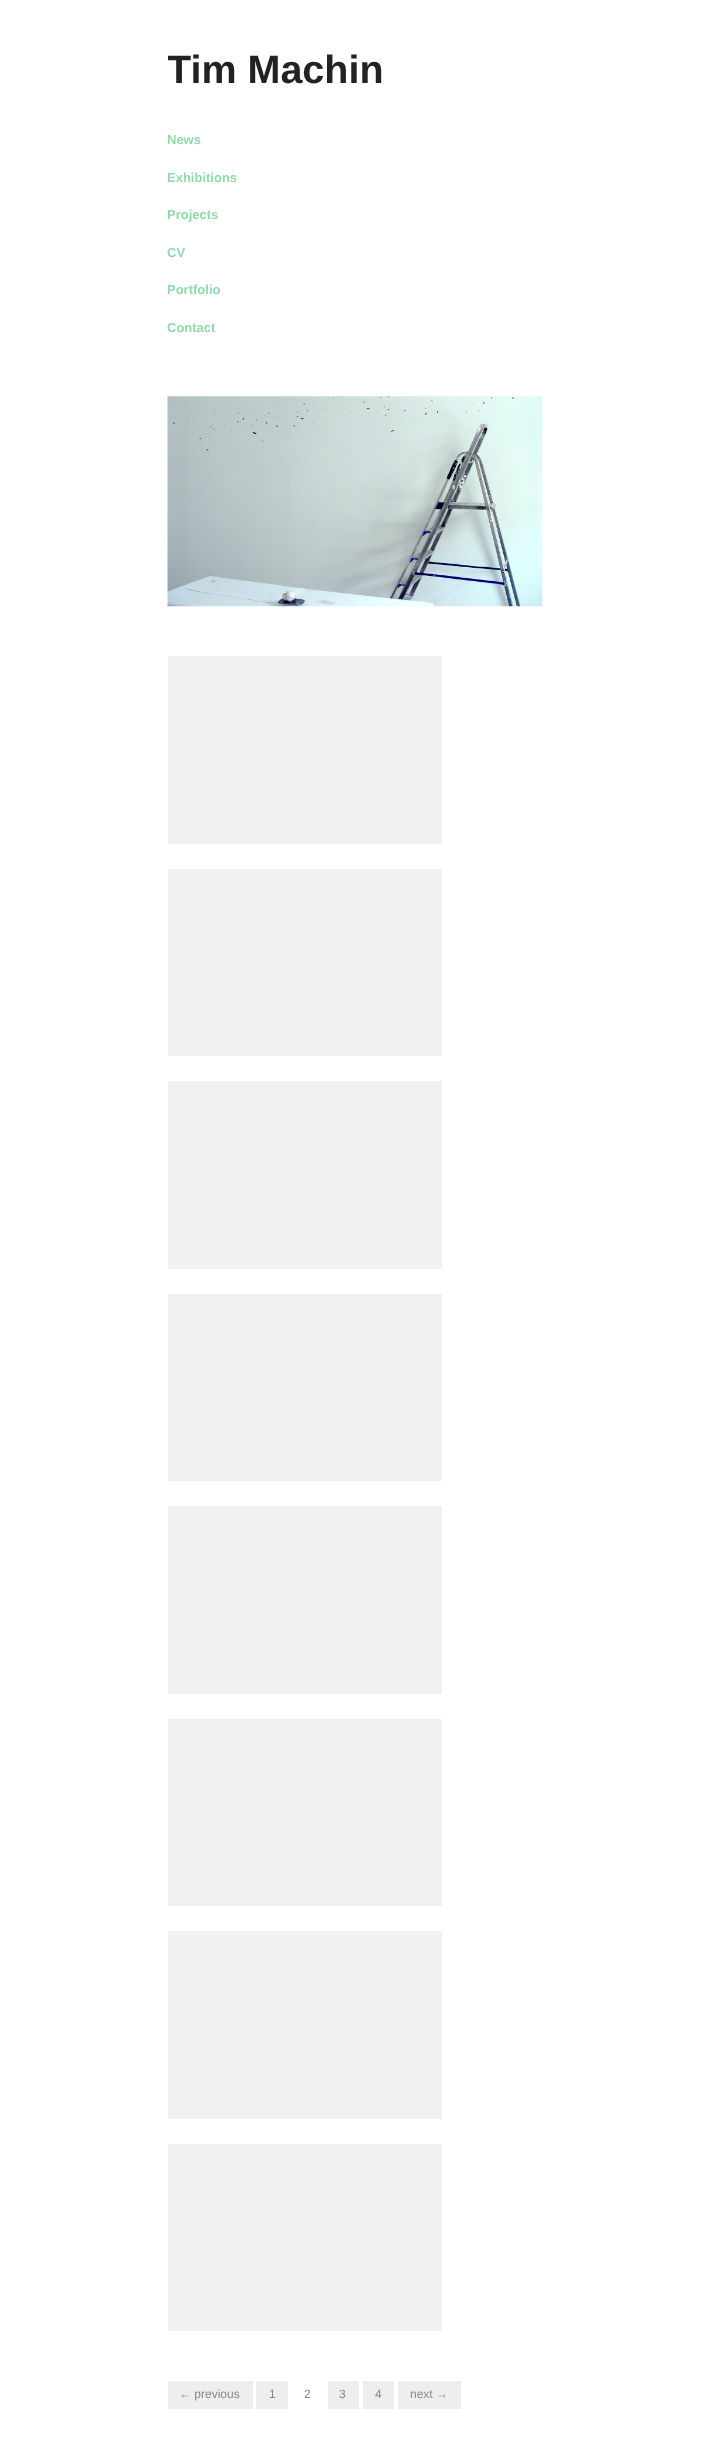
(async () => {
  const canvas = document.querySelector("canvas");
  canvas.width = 708;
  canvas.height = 2452;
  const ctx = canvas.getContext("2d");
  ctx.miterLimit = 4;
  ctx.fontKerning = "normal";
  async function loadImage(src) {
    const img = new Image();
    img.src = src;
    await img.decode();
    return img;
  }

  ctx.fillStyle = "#ffffff";
  ctx.fillRect(0, 0, 708, 2452);
  ctx.drawImage(await loadImage("img/1.png"), 167, 396, 376, 211);
  for (const [x, y, w, h, color] of [
    [168, 656, 274, 188, "#f1f1f1"],
    [168, 869, 274, 187, "#f1f1f1"],
    [168, 1081, 274, 188, "#f1f1f1"],
    [168, 1294, 274, 187, "#f1f1f1"],
    [168, 1506, 274, 188, "#f1f1f1"],
    [168, 1719, 274, 187, "#f1f1f1"],
    [168, 1931, 274, 188, "#f1f1f1"],
    [168, 2144, 274, 187, "#f1f1f1"],
    [168, 2381, 85, 28, "#eeeeee"],
    [256, 2381, 32, 28, "#eeeeee"],
    [328, 2381, 31, 28, "#eeeeee"],
    [363, 2381, 31, 28, "#eeeeee"],
    [398, 2381, 63, 28, "#eeeeee"],
  ]) {
    ctx.fillStyle = color;
    ctx.fillRect(x, y, w, h);
  }
  ctx.save();
  ctx.beginPath();
  ctx.rect(168, 50, 375, 46);
  ctx.clip();
  ctx.font = "bold 39.5px Liberation Sans";
  ctx.fillStyle = "#222222";
  ctx.fillText("Tim Machin", 167, 83);
  ctx.restore();
  ctx.font = "bold 13px Liberation Sans";
  ctx.fillStyle = "#93d7ad";
  for (const [text, x, y] of [
    ["News", 167, 144],
    ["Exhibitions", 167, 182],
    ["Projects", 167, 219],
    ["CV", 167, 257],
    ["Portfolio", 167, 294],
    ["Contact", 167, 332],
  ]) {
    ctx.fillText(text, x, y);
  }
  ctx.font = "12px Liberation Sans";
  ctx.fillStyle = "#888888";
  for (const [text, x, y] of [
    ["← previous", 179, 2398],
    ["1", 269, 2398],
    ["2", 304, 2398],
    ["3", 339, 2398],
    ["4", 375, 2398],
    ["next →", 410, 2398],
  ]) {
    ctx.fillText(text, x, y);
  }
})();
